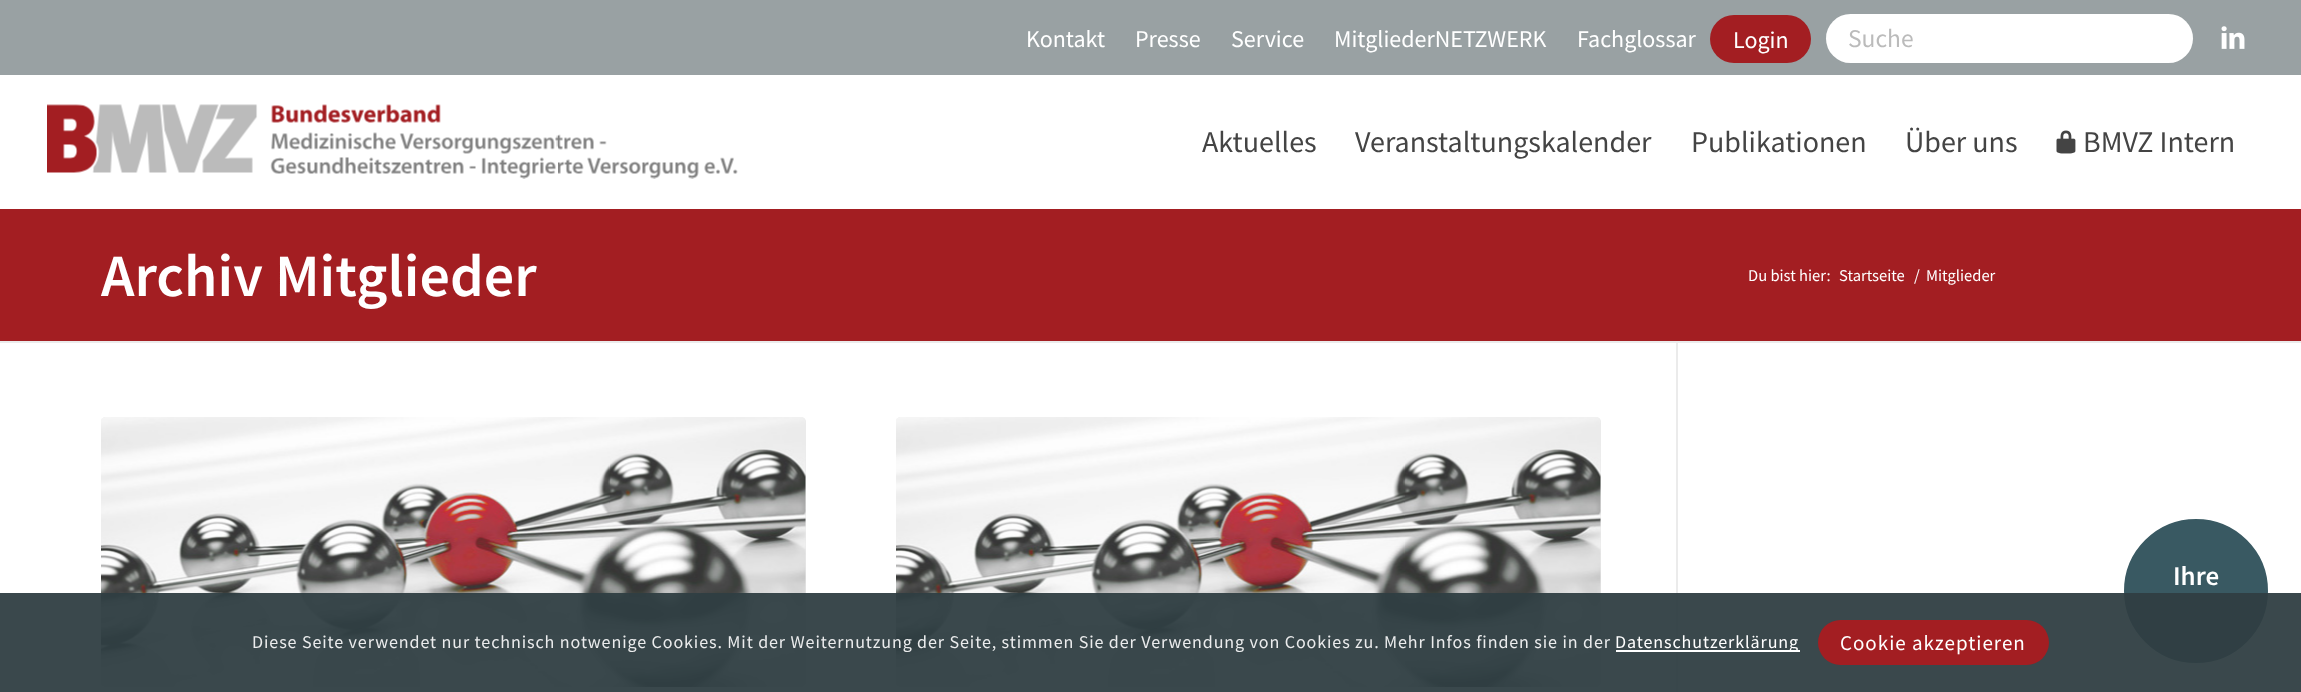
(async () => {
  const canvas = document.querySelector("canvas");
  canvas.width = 2301;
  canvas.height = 692;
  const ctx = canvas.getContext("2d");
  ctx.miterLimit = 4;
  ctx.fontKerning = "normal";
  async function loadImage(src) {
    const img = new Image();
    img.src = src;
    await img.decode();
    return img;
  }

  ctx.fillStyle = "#ffffff";
  ctx.fillRect(0, 0, 2301, 692);
  ctx.fillStyle = "#99a1a3";
  ctx.fillRect(0, 0, 2301, 75);
  ctx.fillStyle = "#a31e22";
  ctx.beginPath();
  ctx.roundRect(1710, 15, 101, 48, 24);
  ctx.fill();
  ctx.fillStyle = "#ffffff";
  ctx.beginPath();
  ctx.roundRect(1826, 14, 367, 49, 24.5);
  ctx.fill();
  ctx.drawImage(await loadImage("img/1.png"), 2221, 26, 24, 23);
  ctx.drawImage(await loadImage("img/2.png"), 47, 104, 691, 75);
  ctx.drawImage(await loadImage("img/3.png"), 2056, 130, 20, 24);
  for (const [x, y, w, h, color] of [
    [0, 209, 2301, 132, "#a31e22"],
    [0, 341, 2301, 2, "#ebebeb"],
    [1676, 342, 2, 350, "#ebebeb"],
  ]) {
    ctx.fillStyle = color;
    ctx.fillRect(x, y, w, h);
  }
  ctx.beginPath();
  ctx.roundRect(101, 417, 705, 270, 5);
  ctx.fill();
  ctx.drawImage(await loadImage("img/4.png"), 101, 417, 705, 270);
  ctx.beginPath();
  ctx.roundRect(896, 417, 705, 270, 5);
  ctx.fill();
  ctx.drawImage(await loadImage("img/4.png"), 896, 417, 705, 270);
  ctx.fillStyle = "#395962";
  ctx.beginPath();
  ctx.arc(2196, 591, 73.5, 0, Math.PI * 2);
  ctx.fill();
  ctx.strokeStyle = "#ffffff";
  ctx.lineWidth = 3;
  ctx.stroke();
  ctx.fillStyle = "rgba(47, 62, 66, 0.95)";
  ctx.fillRect(0, 593, 2301, 99);
  ctx.fillStyle = "#ffffff";
  ctx.fillRect(1616, 650, 184, 2);
  ctx.fillStyle = "#a31e22";
  ctx.beginPath();
  ctx.roundRect(1818, 620, 231, 45, 22.5);
  ctx.fill();
  ctx.font = "24px Source Sans Pro";
  ctx.fillStyle = "#ffffff";
  for (const [text, x, y] of [
    ["Kontakt", 1026, 47],
    ["Presse", 1135, 47],
    ["Service", 1231, 47],
    ["MitgliederNETZWERK", 1334, 47],
    ["Fachglossar", 1577, 47],
    ["Login", 1733, 48],
  ]) {
    ctx.fillText(text, x, y);
  }
  ctx.font = "25.5px Source Sans Pro";
  ctx.fillStyle = "#bbbbbb";
  ctx.fillText("Suche", 1848, 47);
  ctx.font = "30px Source Sans Pro";
  ctx.fillStyle = "#444444";
  for (const [text, x, y] of [
    ["Aktuelles", 1202, 152],
    ["Veranstaltungskalender", 1355, 152],
    ["Publikationen", 1691, 152],
    ["Über uns", 1905, 152],
    ["BMVZ Intern", 2083, 152],
  ]) {
    ctx.fillText(text, x, y);
  }
  ctx.font = "600 60px Source Sans Pro";
  ctx.fillStyle = "#ffffff";
  ctx.fillText("Archiv Mitglieder", 101, 296);
  ctx.font = "16.5px Source Sans Pro";
  for (const [text, x, y] of [
    ["Du bist hier:", 1748, 281],
    ["Startseite", 1839, 281],
    ["/", 1914, 281],
    ["Mitglieder", 1926, 281],
  ]) {
    ctx.fillText(text, x, y);
  }
  ctx.font = "600 27px Source Sans Pro";
  ctx.fillText("Ihre", 2173, 585);
  ctx.letterSpacing = "0.9px";
  ctx.font = "18px Source Sans Pro";
  ctx.fillStyle = "#ebeced";
  ctx.fillText("Diese Seite verwendet nur technisch notwenige Cookies. Mit der Weiternutzung der Seite, stimmen Sie der Verwendung von Cookies zu. Mehr Infos finden sie in der", 252, 648);
  ctx.fillStyle = "#ffffff";
  ctx.fillText("Datenschutzerklärung", 1615, 648);
  ctx.letterSpacing = "1px";
  ctx.font = "21px Source Sans Pro";
  ctx.fillText("Cookie akzeptieren", 1840, 650);
})();
